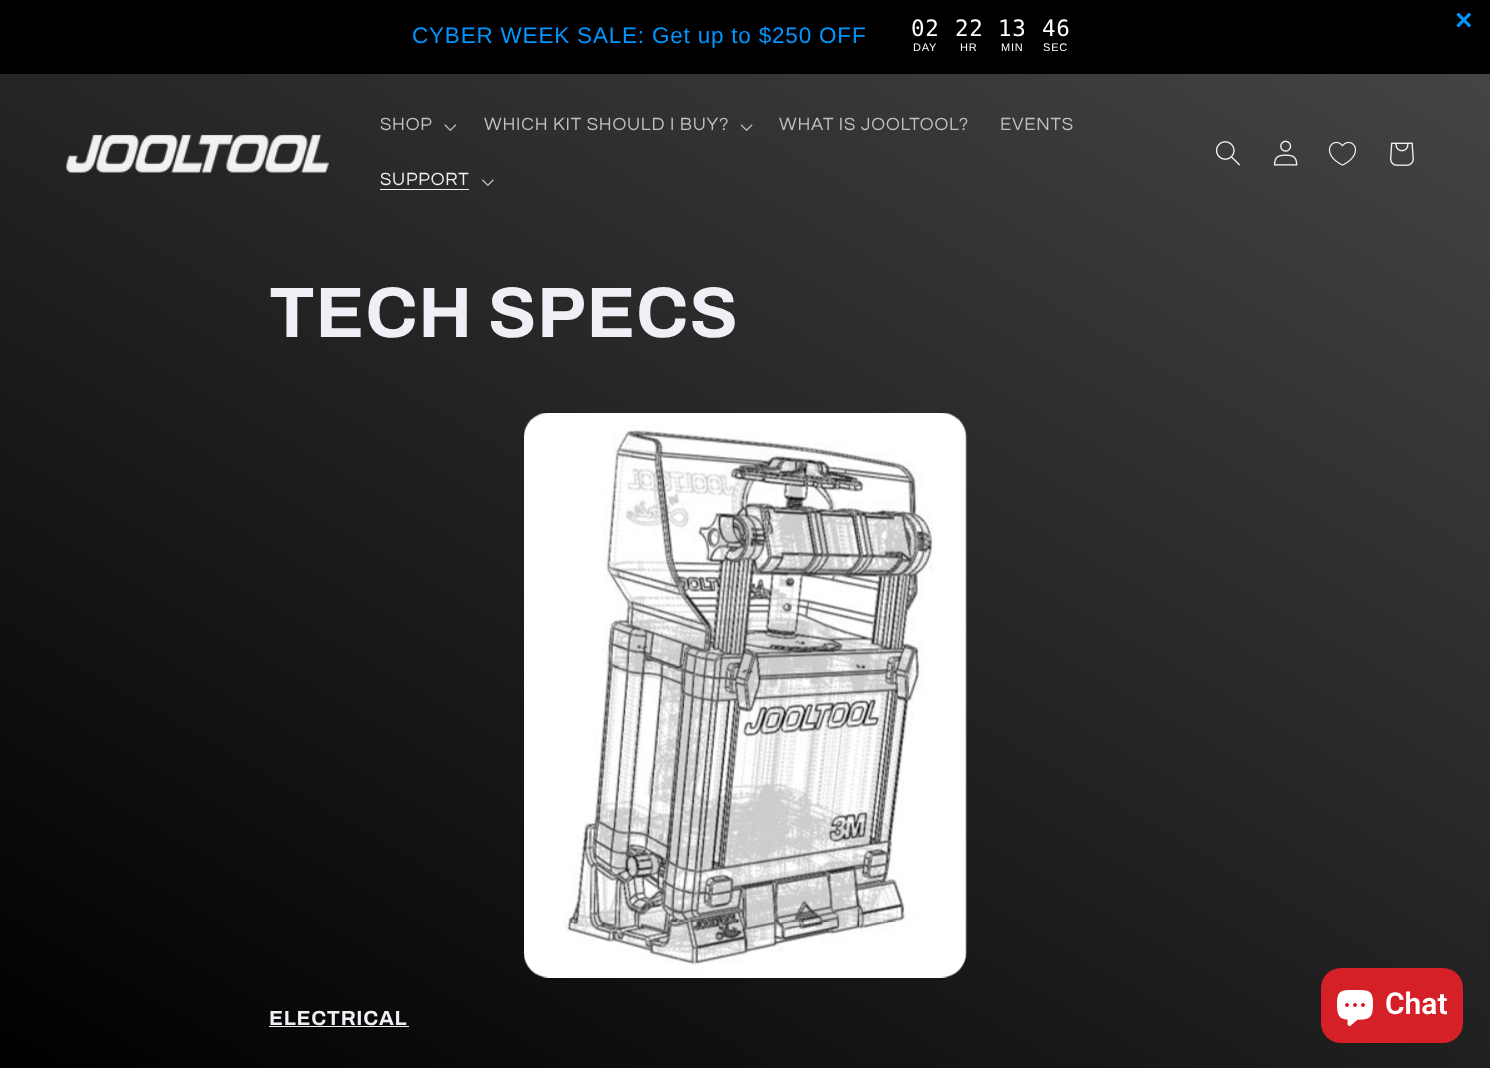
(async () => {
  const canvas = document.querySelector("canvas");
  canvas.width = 1490;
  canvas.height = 1068;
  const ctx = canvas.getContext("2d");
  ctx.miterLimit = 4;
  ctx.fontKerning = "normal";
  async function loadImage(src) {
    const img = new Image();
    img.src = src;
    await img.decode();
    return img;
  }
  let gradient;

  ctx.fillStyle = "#ffffff";
  ctx.fillRect(0, 0, 1490, 1068);
  gradient = ctx.createLinearGradient(327, 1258, 1163, -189);
  gradient.addColorStop(0, "#000000");
  gradient.addColorStop(1, "#474747");
  ctx.fillStyle = gradient;
  ctx.fillRect(0, 74, 1490, 994);
  ctx.fillStyle = "#000000";
  ctx.fillRect(0, 0, 1490, 74);
  ctx.drawImage(await loadImage("img/1.png"), 1456, 13, 15, 15);
  ctx.drawImage(await loadImage("img/2.png"), 66, 134, 263, 39);
  ctx.drawImage(await loadImage("img/3.png"), 444, 124, 13, 7);
  ctx.drawImage(await loadImage("img/4.png"), 740, 124, 13, 7);
  ctx.fillStyle = "#eff0f5";
  ctx.fillRect(380, 189, 89, 1);
  ctx.drawImage(await loadImage("img/5.png"), 482, 179, 12, 7);
  ctx.drawImage(await loadImage("img/6.png"), 1215, 141, 25, 25);
  ctx.drawImage(await loadImage("img/7.png"), 1273, 140, 25, 26);
  ctx.drawImage(await loadImage("img/8.png"), 1328, 141, 29, 25);
  ctx.drawImage(await loadImage("img/9.png"), 1390, 142, 24, 24);
  ctx.drawImage(await loadImage("img/10.png"), 524, 413, 443, 565);
  ctx.fillRect(269, 1026, 140, 1);
  ctx.fillStyle = "#d62027";
  ctx.beginPath();
  ctx.roundRect(1321, 968, 142, 75, 20);
  ctx.fill();
  ctx.drawImage(await loadImage("img/11.png"), 1337, 990, 36, 36);
  ctx.letterSpacing = "0.8px";
  ctx.font = "22.5px Liberation Sans";
  ctx.fillStyle = "#0096ff";
  ctx.fillText("CYBER WEEK SALE: Get up to $250 OFF", 412, 43);
  ctx.font = "22.5px DejaVu Sans Mono";
  ctx.fillStyle = "#ffffff";
  ctx.fillText("02", 911, 36);
  ctx.font = "11px Liberation Sans";
  ctx.fillText("DAY", 913, 51);
  ctx.font = "22.5px DejaVu Sans Mono";
  ctx.fillText("22", 955, 36);
  ctx.font = "11px Liberation Sans";
  ctx.fillText("HR", 960, 51);
  ctx.font = "22.5px DejaVu Sans Mono";
  ctx.fillText("13", 998, 36);
  ctx.font = "11px Liberation Sans";
  ctx.fillText("MIN", 1001, 51);
  ctx.font = "22.5px DejaVu Sans Mono";
  ctx.fillText("46", 1042, 36);
  ctx.font = "11px Liberation Sans";
  ctx.fillText("SEC", 1043, 51);
  ctx.font = "18.4px Questrial";
  ctx.fillStyle = "#c1c1c5";
  for (const [text, x, y] of [
    ["SHOP", 380, 130],
    ["WHICH KIT SHOULD I BUY?", 484, 130],
    ["WHAT IS JOOLTOOL?", 779, 130],
    ["EVENTS", 1000, 130],
  ]) {
    ctx.fillText(text, x, y);
  }
  ctx.fillStyle = "#eff0f5";
  ctx.fillText("SUPPORT", 380, 185);
  ctx.letterSpacing = "0.75px";
  ctx.font = "bold 71.5px Archivo";
  ctx.fillText("TECH SPECS", 269, 337);
  ctx.font = "bold 20.5px Archivo";
  ctx.fillText("ELECTRICAL", 269, 1025);
  ctx.letterSpacing = "0px";
  ctx.font = "600 30px Roboto";
  ctx.fillStyle = "#ffffff";
  ctx.fillText("Chat", 1385, 1014);
})();
